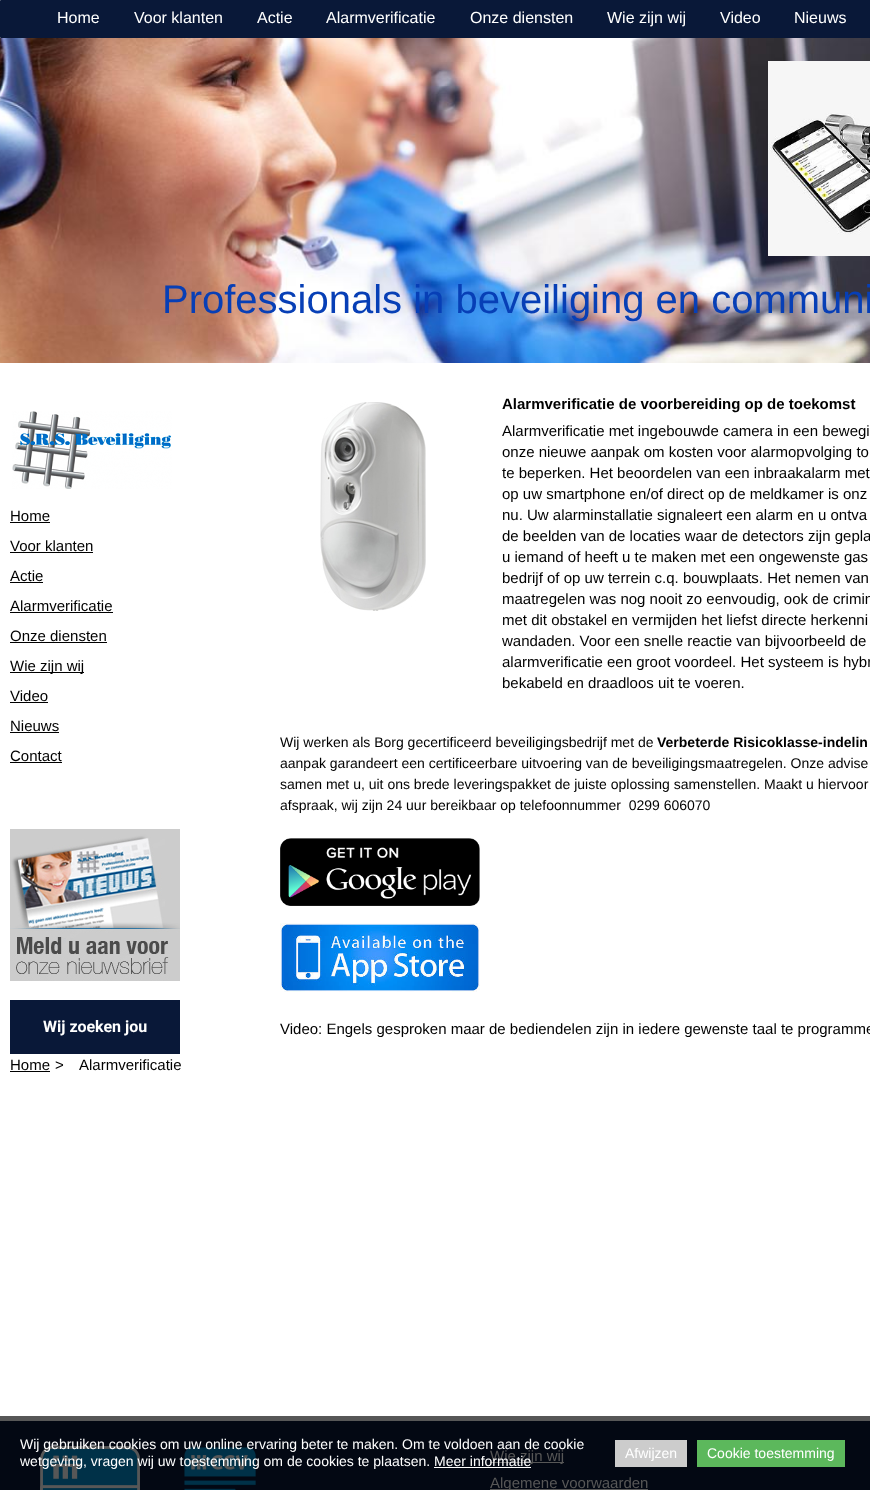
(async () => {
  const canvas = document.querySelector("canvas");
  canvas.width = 870;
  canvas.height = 1490;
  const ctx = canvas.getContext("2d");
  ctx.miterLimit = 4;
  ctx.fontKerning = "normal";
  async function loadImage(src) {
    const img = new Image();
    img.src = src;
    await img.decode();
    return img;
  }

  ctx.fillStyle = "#ffffff";
  ctx.fillRect(0, 0, 870, 1490);
  ctx.fillStyle = "#575757";
  ctx.fillRect(0, 1416, 870, 5);
  ctx.fillStyle = "#091838";
  ctx.beginPath();
  ctx.roundRect(0, 0, 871, 38, 1);
  ctx.fill();
  ctx.drawImage(await loadImage("img/1.png"), 0, 38, 870, 325);
  ctx.drawImage(await loadImage("img/2.png"), 768, 61, 102, 195);
  ctx.drawImage(await loadImage("img/3.png"), 12, 411, 160, 78);
  for (const [x, y, w, h, color] of [
    [10, 522, 40, 1, "#000000"],
    [10, 552, 83, 1, "#000000"],
    [10, 582, 33, 1, "#000000"],
    [10, 612, 103, 1, "#000000"],
    [10, 642, 97, 1, "#000000"],
    [10, 672, 74, 1, "#000000"],
    [10, 702, 38, 1, "#000000"],
    [10, 732, 49, 1, "#000000"],
    [10, 762, 52, 1, "#000000"],
  ]) {
    ctx.fillStyle = color;
    ctx.fillRect(x, y, w, h);
  }
  ctx.drawImage(await loadImage("img/4.png"), 10, 829, 170, 152);
  ctx.fillStyle = "#091838";
  ctx.fillRect(10, 1000, 170, 54);
  ctx.fillStyle = "#000000";
  ctx.fillRect(10, 1071, 40, 1);
  ctx.drawImage(await loadImage("img/5.png"), 320, 402, 106, 209);
  ctx.drawImage(await loadImage("img/6.png"), 280, 838, 200, 68);
  ctx.drawImage(await loadImage("img/7.png"), 280, 923, 200, 69);
  ctx.fillStyle = "#030813";
  ctx.fillRect(0, 1421, 870, 69);
  ctx.drawImage(await loadImage("img/8.png"), 40, 1446, 100, 44);
  ctx.drawImage(await loadImage("img/9.png"), 184, 1447, 72, 43);
  for (const [x, y, w, h, color] of [
    [490, 1462, 74, 1, "#575757"],
    [490, 1489, 158, 1, "#575757"],
    [434, 1467, 97, 1, "#ffffff"],
    [615, 1440, 72, 27, "#cccccc"],
    [697, 1440, 148, 27, "#5cb85c"],
  ]) {
    ctx.fillStyle = color;
    ctx.fillRect(x, y, w, h);
  }
  ctx.font = "16px Liberation Sans";
  ctx.fillStyle = "#ffffff";
  for (const [text, x, y] of [
    ["Home", 57, 23],
    ["Voor klanten", 134, 23],
    ["Actie", 257, 23],
    ["Alarmverificatie", 326, 23],
    ["Onze diensten", 470, 23],
    ["Wie zijn wij", 607, 23],
    ["Video", 720, 23],
    ["Nieuws", 794, 23],
  ]) {
    ctx.fillText(text, x, y);
  }
  ctx.font = "40px Liberation Sans";
  ctx.fillStyle = "#073fb6";
  ctx.fillText("Professionals in beveiliging en communi", 162, 313);
  ctx.font = "15px Liberation Sans";
  ctx.fillStyle = "#000000";
  for (const [text, x, y] of [
    ["Home", 10, 521],
    ["Voor klanten", 10, 551],
    ["Actie", 10, 581],
    ["Alarmverificatie", 10, 611],
    ["Onze diensten", 10, 641],
    ["Wie zijn wij", 10, 671],
    ["Video", 10, 701],
    ["Nieuws", 10, 731],
    ["Contact", 10, 761],
  ]) {
    ctx.fillText(text, x, y);
  }
  ctx.font = "bold 16px Roboto";
  ctx.fillStyle = "#ffffff";
  ctx.fillText("Wij zoeken jou", 43, 1032);
  ctx.font = "15px Liberation Sans";
  ctx.fillStyle = "#000000";
  for (const [text, x, y] of [
    ["Home", 10, 1070],
    [">", 55, 1070],
    ["Alarmverificatie", 79, 1070],
  ]) {
    ctx.fillText(text, x, y);
  }
  ctx.font = "bold 15px Liberation Sans";
  ctx.fillText("Alarmverificatie de voorbereiding op de toekomst", 502, 409);
  ctx.font = "15px Liberation Sans";
  for (const [text, x, y] of [
    ["Alarmverificatie met ingebouwde camera in een bewegi", 502, 436],
    ["onze nieuwe aanpak om kosten voor alarmopvolging to", 502, 457],
    ["te beperken. Het beoordelen van een inbraakalarm met", 502, 478],
    ["op uw smartphone en/of direct op de meldkamer is onz", 502, 499],
    ["nu. Uw alarminstallatie signaleert een alarm en u ontva", 502, 520],
    ["de beelden van de locaties waar de detectors zijn gepla", 502, 541],
    ["u iemand of heeft u te maken met een ongewenste gas", 502, 562],
    ["bedrijf of op uw terrein c.q. bouwplaats. Het nemen van", 502, 583],
    ["maatregelen was nog nooit zo eenvoudig, ook de crimin", 502, 604],
    ["met dit obstakel en vermijden het liefst directe herkenni", 502, 625],
    ["wandaden. Voor een snelle reactie van bijvoorbeeld de", 502, 646],
    ["alarmverificatie een groot voordeel. Het systeem is hybr", 502, 667],
    ["bekabeld en draadloos uit te voeren.", 502, 688],
  ]) {
    ctx.fillText(text, x, y);
  }
  ctx.font = "14px Liberation Sans";
  ctx.fillText("Wij werken als Borg gecertificeerd beveiligingsbedrijf met de", 280, 747);
  ctx.font = "bold 14px Liberation Sans";
  ctx.fillText("Verbeterde Risicoklasse-indelin", 657, 747);
  ctx.font = "14px Liberation Sans";
  for (const [text, x, y] of [
    ["aanpak garandeert een certificeerbare uitvoering van de beveiligingsmaatregelen. Onze advise", 280, 768],
    ["samen met u, uit ons brede leveringspakket de juiste oplossing samenstellen. Maakt u hiervoor", 280, 789],
    ["afspraak, wij zijn 24 uur bereikbaar op telefoonnummer  0299 606070", 280, 810],
  ]) {
    ctx.fillText(text, x, y);
  }
  ctx.font = "15px Liberation Sans";
  ctx.fillText("Video: Engels gesproken maar de bediendelen zijn in iedere gewenste taal te programme", 280, 1034);
  ctx.fillStyle = "#575757";
  ctx.fillText("Wie zijn wij", 490, 1461);
  ctx.fillText("Algemene voorwaarden", 490, 1488);
  ctx.font = "14px Liberation Sans";
  ctx.fillStyle = "#ffffff";
  for (const [text, x, y] of [
    ["Wij gebruiken cookies om uw online ervaring beter te maken. Om te voldoen aan de cookie", 20, 1449],
    ["wetgeving, vragen wij uw toestemming om de cookies te plaatsen. Meer informatie", 20, 1466],
    ["Afwijzen", 625, 1458],
    ["Cookie toestemming", 707, 1458],
  ]) {
    ctx.fillText(text, x, y);
  }
})();
